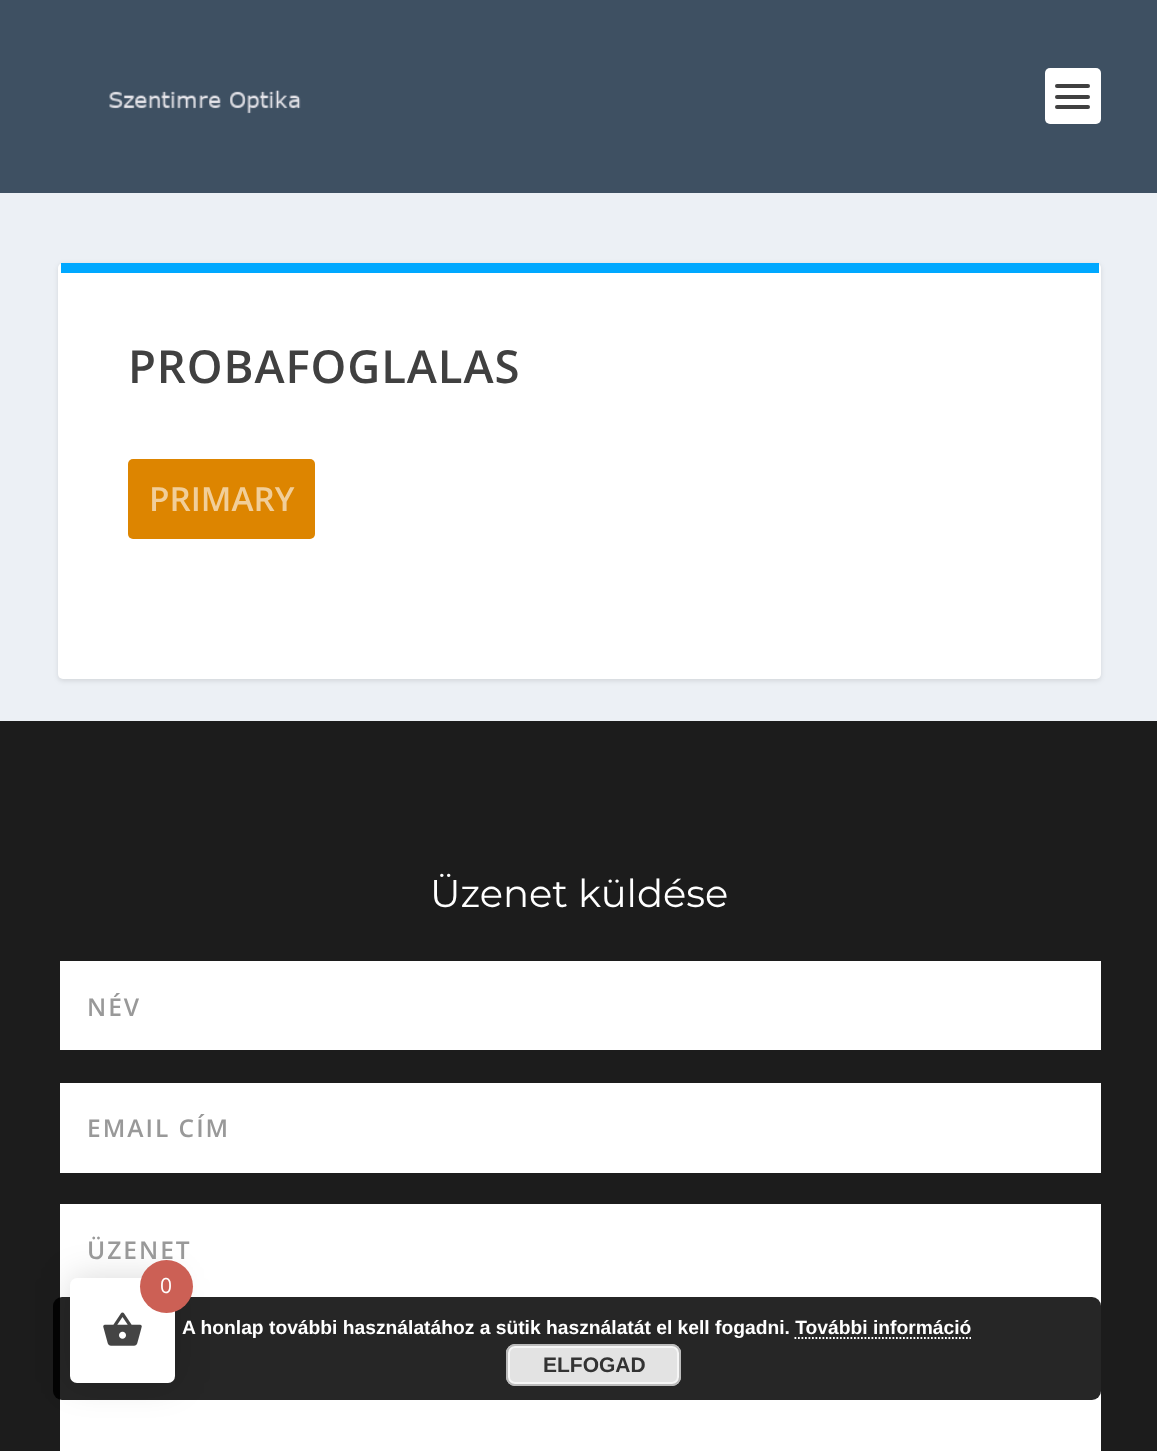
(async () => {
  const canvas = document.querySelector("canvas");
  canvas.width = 1157;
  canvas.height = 1451;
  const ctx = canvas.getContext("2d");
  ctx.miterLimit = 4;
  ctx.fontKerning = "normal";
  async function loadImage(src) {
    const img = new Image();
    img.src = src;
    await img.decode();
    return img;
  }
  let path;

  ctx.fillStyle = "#ecf0f5";
  ctx.fillRect(0, 0, 1157, 1451);
  ctx.fillStyle = "#3e5062";
  ctx.fillRect(0, 0, 1157, 193);
  ctx.drawImage(await loadImage("img/1.png"), 109, 90, 192, 24);
  ctx.fillStyle = "#ffffff";
  ctx.beginPath();
  ctx.roundRect(1045, 68, 56, 56, 5);
  ctx.fill();
  ctx.fillStyle = "#404040";
  ctx.beginPath();
  ctx.roundRect(1055, 84, 35, 4, 2);
  ctx.fill();
  ctx.beginPath();
  ctx.roundRect(1055, 95, 35, 4, 2);
  ctx.fill();
  ctx.beginPath();
  ctx.roundRect(1055, 105, 35, 4, 2);
  ctx.fill();
  ctx.fillStyle = "rgba(0, 0, 0, 0.1)";
  ctx.filter = "blur(2.5px)";
  ctx.beginPath();
  ctx.roundRect(58, 264, 1043, 417, 5);
  ctx.fill();
  ctx.filter = "none";
  ctx.fillStyle = "#ffffff";
  ctx.beginPath();
  ctx.roundRect(58, 263, 1043, 416, 5);
  ctx.fill();
  ctx.fillStyle = "#00a8ff";
  ctx.fillRect(61, 263, 1038, 10);
  ctx.fillStyle = "#dd8500";
  ctx.beginPath();
  ctx.roundRect(128, 459, 187, 80, 5);
  ctx.fill();
  for (const [x, y, w, h, color] of [
    [0, 721, 1157, 730, "#1c1c1c"],
    [60, 961, 1041, 89, "#ffffff"],
    [60, 1083, 1041, 90, "#ffffff"],
    [60, 1204, 1041, 247, "#ffffff"],
  ]) {
    ctx.fillStyle = color;
    ctx.fillRect(x, y, w, h);
  }
  ctx.fillStyle = "rgba(0, 0, 0, 0.85)";
  ctx.beginPath();
  ctx.roundRect(53, 1297, 1048, 103, 9);
  ctx.fill();
  ctx.fillStyle = "rgba(0, 0, 0, 0.15)";
  ctx.filter = "blur(17.5px)";
  ctx.beginPath();
  ctx.roundRect(70, 1278, 105, 105, 7);
  ctx.fill();
  ctx.filter = "none";
  ctx.fillStyle = "#ffffff";
  ctx.beginPath();
  ctx.roundRect(70, 1278, 105, 105, 7);
  ctx.fill();
  ctx.drawImage(await loadImage("img/2.png"), 103, 1312, 39, 34);
  ctx.fillStyle = "#cc6055";
  ctx.beginPath();
  ctx.arc(166.5, 1286.5, 26.5, 0, Math.PI * 2);
  ctx.fill();
  path = new Path2D("M794.5 1338H971");
  ctx.strokeStyle = "#ffffff";
  ctx.lineWidth = 1.8;
  ctx.setLineDash([1.75, 1.75]);
  ctx.stroke(path);
  ctx.fillStyle = "#e3e3e3";
  ctx.beginPath();
  ctx.roundRect(506, 1344, 175, 42, 9);
  ctx.fill();
  ctx.beginPath();
  ctx.roundRect(509, 1347, 169, 36, 6);
  ctx.strokeStyle = "#f6f6f6";
  ctx.lineWidth = 2;
  ctx.setLineDash([]);
  ctx.stroke();
  ctx.beginPath();
  ctx.roundRect(507, 1345, 173, 40, 8);
  ctx.strokeStyle = "#bbbbbb";
  ctx.stroke();
  ctx.letterSpacing = "0.9px";
  ctx.font = "600 45.5px Open Sans";
  ctx.fillStyle = "#404040";
  ctx.fillText("PROBAFOGLALAS", 128, 383);
  ctx.letterSpacing = "0px";
  ctx.font = "600 33.25px Open Sans";
  ctx.fillStyle = "#f1ce99";
  ctx.fillText("PRIMARY", 149, 511);
  ctx.font = "100 38.5px Montserrat";
  ctx.fillStyle = "#ffffff";
  ctx.fillText("Üzenet küldése", 430, 907);
  ctx.letterSpacing = "2px";
  ctx.font = "600 24.5px Open Sans";
  ctx.fillStyle = "#999999";
  for (const [text, x, y] of [
    ["NÉV", 87, 1016],
    ["EMAIL CÍM", 87, 1137],
    ["ÜZENET", 87, 1259],
  ]) {
    ctx.fillText(text, x, y);
  }
  ctx.letterSpacing = "0px";
  ctx.font = "21px Open Sans";
  ctx.fillStyle = "#ffffff";
  ctx.fillText("0", 160, 1293);
  ctx.font = "bold 19.25px Liberation Sans";
  ctx.fillText("A honlap további használatához a sütik használatát el kell fogadni. További információ", 182, 1334);
  ctx.font = "bold 21px Liberation Sans";
  ctx.fillStyle = "#333333";
  ctx.fillText("ELFOGAD", 543, 1372);
})();
